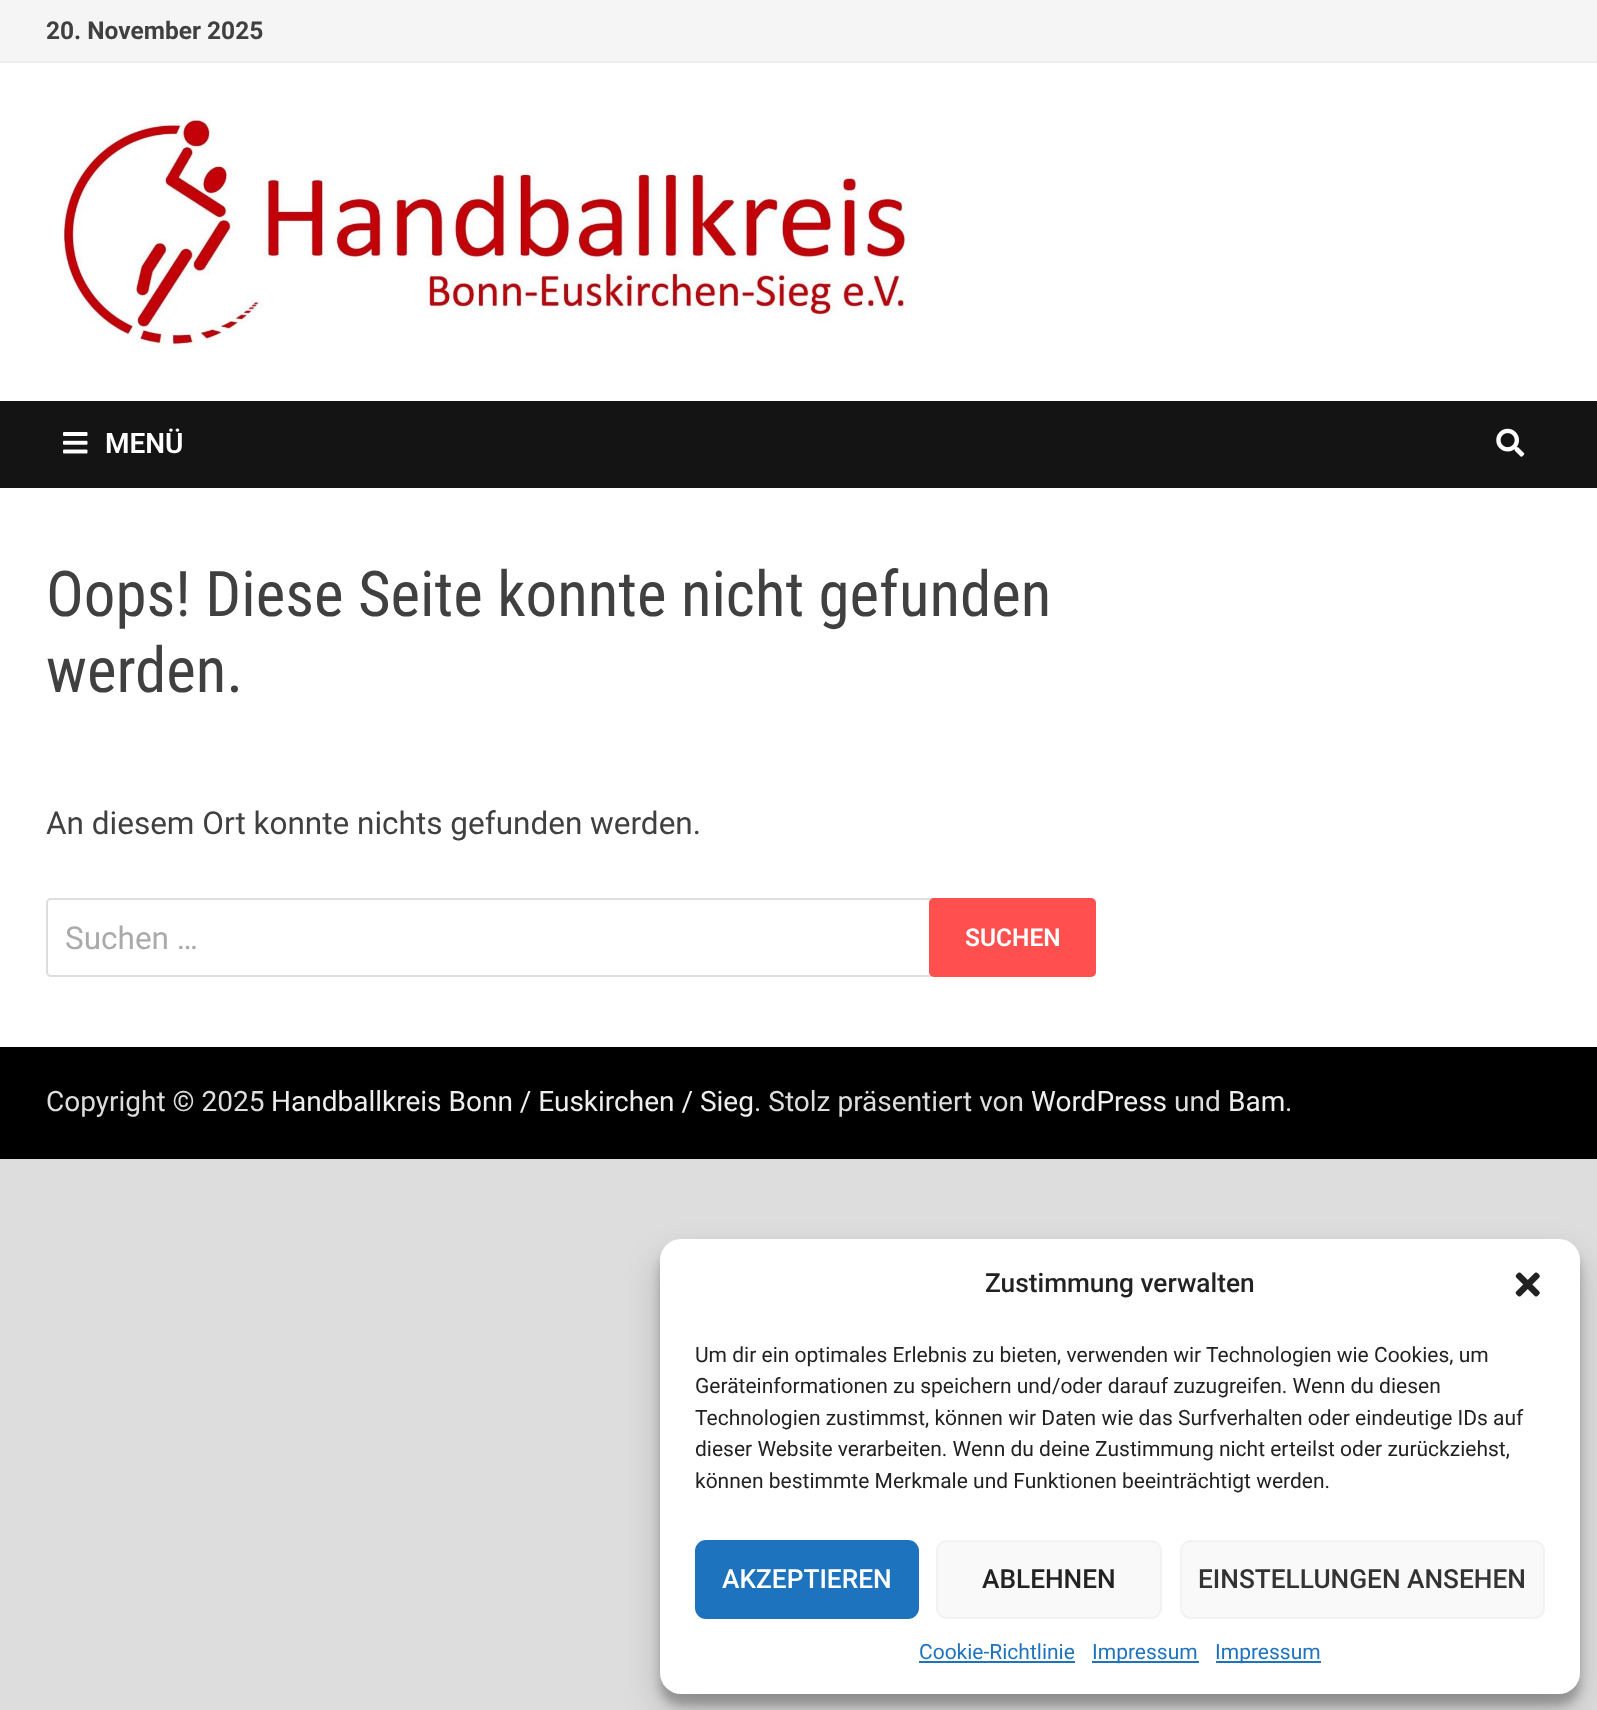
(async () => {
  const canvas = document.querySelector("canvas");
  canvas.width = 1597;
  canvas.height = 1710;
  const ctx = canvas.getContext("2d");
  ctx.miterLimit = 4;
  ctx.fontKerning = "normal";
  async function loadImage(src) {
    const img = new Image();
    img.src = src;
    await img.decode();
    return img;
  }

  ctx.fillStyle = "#dddddd";
  ctx.fillRect(0, 0, 1597, 1710);
  for (const [x, y, w, h, color] of [
    [0, 63, 1597, 984, "#ffffff"],
    [0, 0, 1597, 61, "#f5f5f5"],
    [0, 61, 1597, 2, "#eeeeee"],
  ]) {
    ctx.fillStyle = color;
    ctx.fillRect(x, y, w, h);
  }
  ctx.drawImage(await loadImage("img/1.png"), 63, 117, 848, 232);
  ctx.fillStyle = "#141414";
  ctx.fillRect(0, 401, 1597, 87);
  ctx.drawImage(await loadImage("img/2.png"), 63, 432, 25, 22);
  ctx.drawImage(await loadImage("img/3.png"), 1496, 428, 29, 29);
  ctx.beginPath();
  ctx.roundRect(47, 899, 1048, 77, 4);
  ctx.strokeStyle = "#dddddd";
  ctx.lineWidth = 2;
  ctx.stroke();
  ctx.fillStyle = "#ff4f4f";
  ctx.beginPath();
  ctx.roundRect(929, 898, 167, 79, 5);
  ctx.fill();
  ctx.fillStyle = "#000000";
  ctx.fillRect(0, 1047, 1597, 112);
  ctx.fillStyle = "rgba(0, 0, 0, 0.23)";
  ctx.filter = "blur(5px)";
  ctx.beginPath();
  ctx.roundRect(660, 1250, 920, 455, 21);
  ctx.fill();
  ctx.filter = "none";
  ctx.fillStyle = "rgba(0, 0, 0, 0.19)";
  ctx.filter = "blur(17.5px)";
  ctx.beginPath();
  ctx.roundRect(660, 1257, 920, 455, 21);
  ctx.fill();
  ctx.filter = "none";
  ctx.fillStyle = "#ffffff";
  ctx.beginPath();
  ctx.roundRect(660, 1239, 920, 455, 21);
  ctx.fill();
  ctx.drawImage(await loadImage("img/4.png"), 1515, 1272, 25, 25);
  ctx.fillStyle = "#1e73be";
  ctx.beginPath();
  ctx.roundRect(696, 1541, 222, 77, 10);
  ctx.fill();
  ctx.strokeStyle = "#1e73be";
  ctx.stroke();
  ctx.fillStyle = "#f9f9f9";
  ctx.beginPath();
  ctx.roundRect(937, 1541, 224, 77, 10);
  ctx.fill();
  ctx.strokeStyle = "#f2f2f2";
  ctx.stroke();
  ctx.beginPath();
  ctx.roundRect(1181, 1541, 363, 77, 10);
  ctx.fill();
  ctx.stroke();
  for (const [x, y, w, h, color] of [
    [919, 1661, 156, 2, "#1e73be"],
    [1092, 1661, 107, 2, "#1e73be"],
    [1216, 1661, 105, 2, "#1e73be"],
  ]) {
    ctx.fillStyle = color;
    ctx.fillRect(x, y, w, h);
  }
  ctx.font = "bold 24.5px Roboto";
  ctx.fillStyle = "#404040";
  ctx.fillText("20. November 2025", 46, 39);
  ctx.font = "600 28px Roboto";
  ctx.fillStyle = "#ffffff";
  ctx.fillText("MENÜ", 105, 453);
  ctx.font = "63px Roboto Condensed";
  ctx.fillStyle = "#404040";
  ctx.fillText("Oops! Diese Seite konnte nicht gefunden", 46, 616);
  ctx.fillText("werden.", 46, 692);
  ctx.font = "31.5px Roboto";
  ctx.fillText("An diesem Ort konnte nichts gefunden werden.", 46, 834);
  ctx.fillStyle = "#aaaaaa";
  ctx.fillText("Suchen …", 65, 949);
  ctx.font = "600 24.5px Roboto";
  ctx.fillStyle = "#ffffff";
  ctx.fillText("SUCHEN", 965, 946);
  ctx.font = "28px Roboto";
  ctx.fillStyle = "#dddddd";
  ctx.fillText("Copyright © 2025", 46, 1111);
  ctx.fillStyle = "#eeeeee";
  ctx.fillText("Handballkreis Bonn / Euskirchen / Sieg", 271, 1111);
  ctx.fillStyle = "#dddddd";
  ctx.fillText(". Stolz präsentiert von", 754, 1111);
  ctx.fillStyle = "#eeeeee";
  ctx.fillText("WordPress", 1031, 1111);
  ctx.fillStyle = "#dddddd";
  ctx.fillText("und", 1174, 1111);
  ctx.fillStyle = "#eeeeee";
  ctx.fillText("Bam", 1228, 1111);
  ctx.fillStyle = "#dddddd";
  ctx.fillText(".", 1285, 1111);
  ctx.font = "500 26.25px Roboto";
  ctx.fillStyle = "#222222";
  ctx.fillText("Zustimmung verwalten", 985, 1292);
  ctx.font = "21px Roboto";
  for (const [text, x, y] of [
    ["Um dir ein optimales Erlebnis zu bieten, verwenden wir Technologien wie Cookies, um", 695, 1362],
    ["Geräteinformationen zu speichern und/oder darauf zuzugreifen. Wenn du diesen", 695, 1393],
    ["Technologien zustimmst, können wir Daten wie das Surfverhalten oder eindeutige IDs auf", 695, 1425],
    ["dieser Website verarbeiten. Wenn du deine Zustimmung nicht erteilst oder zurückziehst,", 695, 1456],
    ["können bestimmte Merkmale und Funktionen beeinträchtigt werden.", 695, 1488],
  ]) {
    ctx.fillText(text, x, y);
  }
  ctx.font = "500 26.25px Roboto";
  ctx.fillStyle = "#ffffff";
  ctx.fillText("AKZEPTIEREN", 722, 1588);
  ctx.fillStyle = "#222222";
  ctx.fillText("ABLEHNEN", 982, 1588);
  ctx.fillStyle = "#333333";
  ctx.fillText("EINSTELLUNGEN ANSEHEN", 1198, 1588);
  ctx.font = "21px Roboto";
  ctx.fillStyle = "#1e73be";
  for (const [text, x, y] of [
    ["Cookie-Richtlinie", 919, 1659],
    ["Impressum", 1092, 1659],
    ["Impressum", 1215, 1659],
  ]) {
    ctx.fillText(text, x, y);
  }
})();
